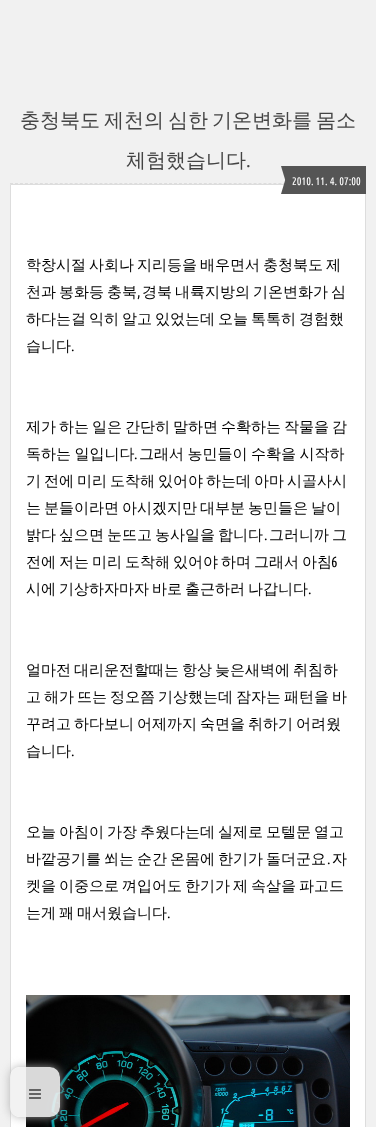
(async () => {
  const canvas = document.querySelector("canvas");
  canvas.width = 376;
  canvas.height = 1127;
  const ctx = canvas.getContext("2d");
  ctx.miterLimit = 4;
  ctx.fontKerning = "normal";
  async function loadImage(src) {
    const img = new Image();
    img.src = src;
    await img.decode();
    return img;
  }
  let path;

  ctx.fillStyle = "#f1f1f1";
  ctx.fillRect(0, 0, 376, 1127);
  path = new Path2D("M10 183.5H366");
  ctx.strokeStyle = "#dddddd";
  ctx.setLineDash([3, 1.97]);
  ctx.stroke(path);
  ctx.fillStyle = "#ffffff";
  ctx.beginPath();
  ctx.rect(10.5, 184.5, 355, 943);
  ctx.fill();
  ctx.setLineDash([]);
  ctx.stroke();
  ctx.fillStyle = "#555555";
  ctx.fillRect(287, 166, 79, 28);
  path = new Path2D("M281 166H287V186Z");
  ctx.fill(path);
  path = new Path2D("M287 194H281L287 174Z");
  ctx.fill(path);
  ctx.drawImage(await loadImage("img/1.png"), 26, 995, 324, 132);
  ctx.save();
  path = new Path2D("M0 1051H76V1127H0ZM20 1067H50C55.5 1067 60 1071.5 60 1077V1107C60 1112.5 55.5 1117 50 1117H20C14.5 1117 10 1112.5 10 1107V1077C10 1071.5 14.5 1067 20 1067Z");
  ctx.clip(path, "evenodd");
  ctx.fillStyle = "rgba(170, 170, 170, 0.9)";
  ctx.filter = "blur(5px)";
  ctx.beginPath();
  ctx.roundRect(10, 1067, 50, 50, 10);
  ctx.fill();
  ctx.filter = "none";
  ctx.restore();
  ctx.fillStyle = "rgba(241, 241, 241, 0.9)";
  ctx.beginPath();
  ctx.roundRect(10, 1067, 50, 50, 10);
  ctx.fill();
  ctx.drawImage(await loadImage("img/2.png"), 29, 1089, 12, 10);
  ctx.wordSpacing = "-2px";
  ctx.font = "500 20px WenQuanYi Zen Hei";
  ctx.fillStyle = "#444444";
  ctx.fillText("충청북도 제천의 심한 기온변화를 몸소", 20, 127);
  ctx.wordSpacing = "0px";
  ctx.fillText("체험했습니다", 126, 167);
  ctx.font = "20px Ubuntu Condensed";
  ctx.fillText(".", 246, 167);
  ctx.font = "11px Ubuntu Condensed";
  ctx.fillStyle = "#ffffff";
  ctx.fillText("2010. 11. 4. 07:00", 292, 185);
  ctx.wordSpacing = "-1.5px";
  ctx.font = "500 15px WenQuanYi Zen Hei";
  ctx.fillStyle = "#000000";
  ctx.fillText("학창시절 사회나 지리등을 배우면서 충청북도 제", 26, 270);
  ctx.fillText("천과 봉화등 충북", 26, 297);
  ctx.wordSpacing = "0px";
  ctx.font = "15px Ubuntu Condensed";
  ctx.fillText(",", 137, 297);
  ctx.wordSpacing = "-1.5px";
  ctx.font = "500 15px WenQuanYi Zen Hei";
  ctx.fillText("경북 내륙지방의 기온변화가 심", 142, 297);
  ctx.fillText("하다는걸 익히 알고 있었는데 오늘 톡톡히 경험했", 26, 324);
  ctx.wordSpacing = "0px";
  ctx.fillText("습니다", 26, 351);
  ctx.font = "15px Ubuntu Condensed";
  ctx.fillText(".", 71, 351);
  ctx.wordSpacing = "-1.5px";
  ctx.font = "500 15px WenQuanYi Zen Hei";
  ctx.fillText("제가 하는 일은 간단히 말하면 수확하는 작물을 감", 26, 432);
  ctx.wordSpacing = "-1px";
  ctx.fillText("독하는 일입니다", 26, 459);
  ctx.wordSpacing = "0px";
  ctx.font = "15px Ubuntu Condensed";
  ctx.fillText(".", 134, 459);
  ctx.wordSpacing = "-1px";
  ctx.font = "500 15px WenQuanYi Zen Hei";
  ctx.fillText("그래서 농민들이 수확을 시작하", 139, 459);
  ctx.wordSpacing = "-1.5px";
  for (const [text, x, y] of [
    ["기 전에 미리 도착해 있어야 하는데 아마 시골사시", 26, 486],
    ["는 분들이라면 아시겠지만 대부분 농민들은 날이", 26, 513],
    ["밝다 싶으면 눈뜨고 농사일을 합니다", 26, 540],
  ]) {
    ctx.fillText(text, x, y);
  }
  ctx.wordSpacing = "0px";
  ctx.font = "15px Ubuntu Condensed";
  ctx.fillText(".", 264, 540);
  ctx.wordSpacing = "-1.5px";
  ctx.font = "500 15px WenQuanYi Zen Hei";
  ctx.fillText("그러니까 그", 269, 540);
  ctx.fillText("전에 저는 미리 도착해 있어야 하며 그래서 아침", 26, 567);
  ctx.wordSpacing = "0px";
  ctx.font = "15px Ubuntu Condensed";
  ctx.fillText("6", 331, 567);
  ctx.wordSpacing = "-1.5px";
  ctx.font = "500 15px WenQuanYi Zen Hei";
  ctx.fillText("시에 기상하자마자 바로 출근하러 나갑니다", 26, 594);
  ctx.wordSpacing = "0px";
  ctx.font = "15px Ubuntu Condensed";
  ctx.fillText(".", 308, 594);
  ctx.wordSpacing = "-1.5px";
  ctx.font = "500 15px WenQuanYi Zen Hei";
  for (const [text, x, y] of [
    ["얼마전 대리운전할때는 항상 늦은새벽에 취침하", 26, 675],
    ["고 해가 뜨는 정오쯤 기상했는데 잠자는 패턴을 바", 26, 702],
    ["꾸려고 하다보니 어제까지 숙면을 취하기 어려웠", 26, 729],
  ]) {
    ctx.fillText(text, x, y);
  }
  ctx.wordSpacing = "0px";
  ctx.fillText("습니다", 26, 756);
  ctx.font = "15px Ubuntu Condensed";
  ctx.fillText(".", 71, 756);
  ctx.wordSpacing = "-1.5px";
  ctx.font = "500 15px WenQuanYi Zen Hei";
  ctx.fillText("오늘 아침이 가장 추웠다는데 실제로 모텔문 열고", 26, 837);
  ctx.fillText("바깥공기를 쐬는 순간 온몸에 한기가 돌더군요", 26, 864);
  ctx.wordSpacing = "0px";
  ctx.font = "15px Ubuntu Condensed";
  ctx.fillText(".", 327, 864);
  ctx.font = "500 15px WenQuanYi Zen Hei";
  ctx.fillText("자", 332, 864);
  ctx.wordSpacing = "-1.5px";
  ctx.fillText("켓을 이중으로 껴입어도 한기가 제 속살을 파고드", 26, 891);
  ctx.fillText("는게 꽤 매서웠습니다", 26, 918);
  ctx.wordSpacing = "0px";
  ctx.font = "15px Ubuntu Condensed";
  ctx.fillText(".", 167, 918);
})();
